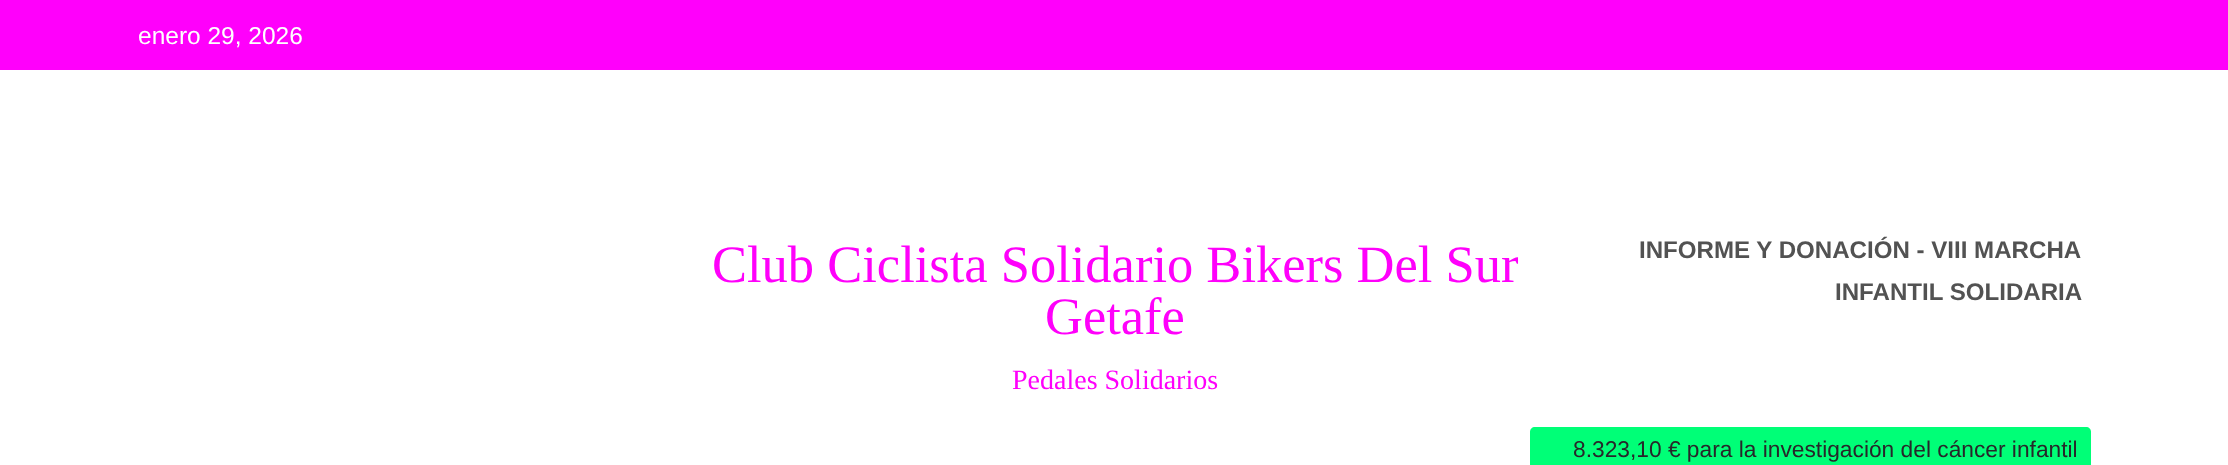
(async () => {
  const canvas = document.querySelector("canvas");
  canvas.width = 2228;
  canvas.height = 465;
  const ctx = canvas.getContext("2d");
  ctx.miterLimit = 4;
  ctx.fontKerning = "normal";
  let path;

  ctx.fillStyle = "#ff00fb";
  ctx.fillRect(0, 0, 2228, 465);
  ctx.fillStyle = "#ffffff";
  ctx.fillRect(0, 70, 2228, 395);
  ctx.fillStyle = "#00ff77";
  path = new Path2D("M1535 427H2086C2089 427 2091 429 2091 432V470H1530V432C1530 429 1532 427 1535 427Z");
  ctx.fill(path);
  ctx.font = "24.5px Liberation Sans";
  ctx.fillStyle = "#ffffff";
  ctx.fillText("enero 29, 2026", 138, 44);
  ctx.font = "52.5px Liberation Serif";
  ctx.fillStyle = "#ff00fb";
  ctx.fillText("Club Ciclista Solidario Bikers Del Sur", 712, 282);
  ctx.fillText("Getafe", 1045, 334);
  ctx.font = "28px Liberation Serif";
  ctx.fillText("Pedales Solidarios", 1012, 389);
  ctx.font = "bold 24.1px Liberation Sans";
  ctx.fillStyle = "#525252";
  ctx.fillText("INFORME Y DONACIÓN - VIII MARCHA", 1639, 258);
  ctx.fillText("INFANTIL SOLIDARIA", 1835, 300);
  ctx.font = "22.75px Liberation Sans";
  ctx.fillStyle = "#27272a";
  ctx.fillText("8.323,10 € para la investigación del cáncer infantil", 1573, 457);
})();
